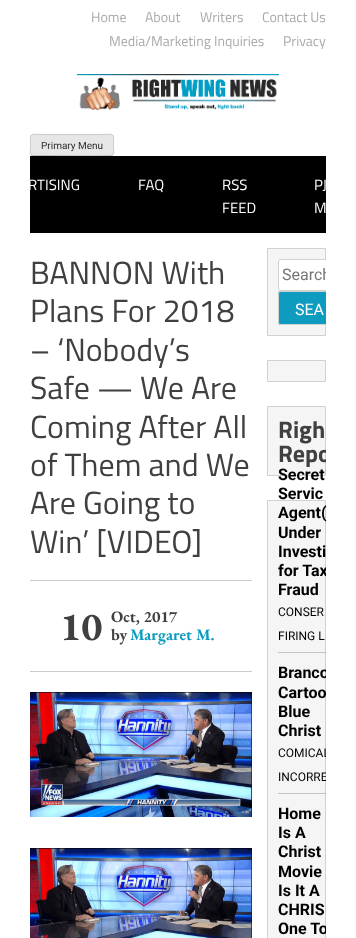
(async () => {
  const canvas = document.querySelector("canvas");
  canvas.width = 356;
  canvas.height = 938;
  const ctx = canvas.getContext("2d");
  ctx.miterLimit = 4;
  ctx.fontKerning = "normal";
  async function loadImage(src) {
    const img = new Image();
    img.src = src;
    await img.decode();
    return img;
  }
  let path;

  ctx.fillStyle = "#ffffff";
  ctx.fillRect(0, 0, 356, 938);
  ctx.drawImage(await loadImage("img/1.png"), 77, 74, 202, 36);
  ctx.fillStyle = "#e6e6e6";
  ctx.beginPath();
  ctx.roundRect(30, 134, 84, 22, 3);
  ctx.fill();
  path = new Path2D("M113 155H112.5C110.5 156.5 53 155.5 46 155.5H33L31 155");
  ctx.strokeStyle = "#bbbbbb";
  ctx.stroke(path);
  path = new Path2D("M31 155C29.5 153 30.5 149.5 30.5 147.5C30.5 131.5 28 134.5 46 134.5H98C116 134.5 113.5 131.5 113.5 147.5C113.5 149.5 114.5 153 113 155");
  ctx.strokeStyle = "#cccccc";
  ctx.stroke(path);
  for (const [x, y, w, h, color] of [
    [30, 156, 296, 77, "#000000"],
    [30, 580, 222, 1, "#cccccc"],
    [30, 671, 222, 1, "#cccccc"],
  ]) {
    ctx.fillStyle = color;
    ctx.fillRect(x, y, w, h);
  }
  ctx.drawImage(await loadImage("img/2.png"), 30, 692, 222, 125);
  ctx.drawImage(await loadImage("img/3.png"), 30, 848, 222, 90);
  ctx.fillStyle = "#f5f5f5";
  ctx.beginPath();
  ctx.rect(267.5, 248.5, 58, 87);
  ctx.fill();
  ctx.strokeStyle = "#d1d1d1";
  ctx.stroke();
  ctx.fillStyle = "#ffffff";
  ctx.beginPath();
  ctx.roundRect(278, 259, 48, 32, [3, 0, 0, 3]);
  ctx.fill();
  ctx.save();
  ctx.beginPath();
  ctx.rect(252, 233, 74, 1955);
  ctx.clip();
  ctx.beginPath();
  ctx.roundRect(278.5, 259.5, 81, 31, 2.5);
  ctx.stroke();
  ctx.restore();
  ctx.fillStyle = "#0d9cbf";
  ctx.beginPath();
  ctx.roundRect(278, 291, 48, 34, [3, 0, 0, 3]);
  ctx.fill();
  ctx.save();
  ctx.beginPath();
  ctx.rect(252, 233, 74, 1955);
  ctx.clip();
  ctx.beginPath();
  ctx.roundRect(278.5, 291.5, 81, 33, 2.5);
  ctx.stroke();
  ctx.restore();
  ctx.fillStyle = "#f5f5f5";
  ctx.beginPath();
  ctx.rect(267.5, 360.5, 58, 21);
  ctx.fill();
  ctx.stroke();
  ctx.beginPath();
  ctx.rect(267.5, 406.5, 58, 69);
  ctx.fill();
  ctx.stroke();
  ctx.beginPath();
  ctx.rect(267.5, 500.5, 58, 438);
  ctx.fill();
  ctx.stroke();
  ctx.fillStyle = "rgba(0, 0, 0, 0.2)";
  ctx.fillRect(278, 652, 48, 1);
  ctx.fillRect(278, 793, 48, 1);
  ctx.font = "14px Titillium Web";
  ctx.fillStyle = "#aaaaaa";
  for (const [text, x, y] of [
    ["Home", 91, 22],
    ["About", 145, 22],
    ["Writers", 200, 22],
    ["Contact Us", 262, 22],
    ["Media/Marketing Inquiries", 109, 46],
    ["Privacy", 283, 46],
  ]) {
    ctx.fillText(text, x, y);
  }
  ctx.font = "10px Roboto";
  ctx.fillStyle = "#2e2e2e";
  ctx.fillText("Primary Menu", 41, 149);
  ctx.font = "15px Titillium Web";
  ctx.fillStyle = "#ffffff";
  for (const [text, x, y] of [
    ["RTISING", 28, 190],
    ["FAQ", 138, 190],
    ["RSS", 222, 190],
    ["FEED", 222, 213],
    ["PJ", 314, 190],
    ["M", 314, 213],
  ]) {
    ctx.fillText(text, x, y);
  }
  ctx.font = "32px Titillium Web";
  ctx.fillStyle = "#404040";
  for (const [text, x, y] of [
    ["BANNON With", 30, 284],
    ["Plans For 2018", 30, 322],
    ["– ‘Nobody’s", 30, 361],
    ["Safe — We Are", 30, 399],
    ["Coming After All", 30, 438],
    ["of Them and We", 30, 476],
    ["Are Going to", 30, 514],
    ["Win’ [VIDEO]", 30, 553],
  ]) {
    ctx.fillText(text, x, y);
  }
  ctx.font = "bold 40px EB Garamond";
  ctx.fillText("10", 60, 640);
  ctx.font = "bold 16px EB Garamond";
  ctx.fillText("Oct, 2017", 111, 622);
  ctx.fillText("by", 111, 640);
  ctx.fillStyle = "#0d9cbf";
  ctx.fillText("Margaret M.", 130, 640);
  ctx.save();
  ctx.beginPath();
  ctx.rect(282, 265, 44, 19);
  ctx.clip();
  ctx.font = "16px Roboto";
  ctx.fillStyle = "#757575";
  ctx.fillText("Search", 282, 280);
  ctx.restore();
  ctx.font = "16px Roboto";
  ctx.fillStyle = "#ffffff";
  ctx.fillText("SEA", 295, 315);
  ctx.font = "bold 24px Titillium Web";
  ctx.fillStyle = "#404040";
  ctx.fillText("Righ", 278, 438);
  ctx.save();
  ctx.beginPath();
  ctx.rect(252, 233, 74, 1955);
  ctx.clip();
  ctx.fillText("Repo", 278, 462);
  ctx.restore();
  ctx.font = "bold 16px Roboto";
  ctx.fillStyle = "#000000";
  for (const [text, x, y] of [
    ["Secret", 278, 480],
    ["Servic", 278, 499],
    ["Agent(", 278, 518],
    ["Under", 278, 538],
    ["Investi", 278, 557],
  ]) {
    ctx.fillText(text, x, y);
  }
  ctx.save();
  ctx.beginPath();
  ctx.rect(252, 233, 74, 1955);
  ctx.clip();
  ctx.fillText("for Tax", 278, 576);
  ctx.restore();
  ctx.fillText("Fraud", 278, 595);
  ctx.font = "12px Roboto";
  ctx.fillText("CONSER", 278, 616);
  ctx.fillText("FIRING L", 278, 640);
  ctx.save();
  ctx.beginPath();
  ctx.rect(252, 233, 74, 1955);
  ctx.clip();
  ctx.font = "bold 16px Roboto";
  ctx.fillText("Branco", 278, 678);
  ctx.restore();
  ctx.font = "bold 16px Roboto";
  for (const [text, x, y] of [
    ["Cartoo", 278, 698],
    ["Blue", 278, 717],
    ["Christ", 278, 736],
  ]) {
    ctx.fillText(text, x, y);
  }
  ctx.save();
  ctx.beginPath();
  ctx.rect(252, 233, 74, 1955);
  ctx.clip();
  ctx.font = "12px Roboto";
  ctx.fillText("COMICAL", 278, 757);
  ctx.fillText("INCORRE", 278, 781);
  ctx.restore();
  for (const [text, x, y] of [
    ["Home", 278, 819],
    ["Is A", 278, 838],
    ["Christ", 278, 857],
    ["Movie", 278, 877],
    ["Is It A", 278, 896],
    ["CHRIS", 278, 915],
  ]) {
    ctx.fillText(text, x, y);
  }
  ctx.save();
  ctx.beginPath();
  ctx.rect(252, 233, 74, 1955);
  ctx.clip();
  ctx.fillText("One To", 278, 934);
  ctx.restore();
})();
